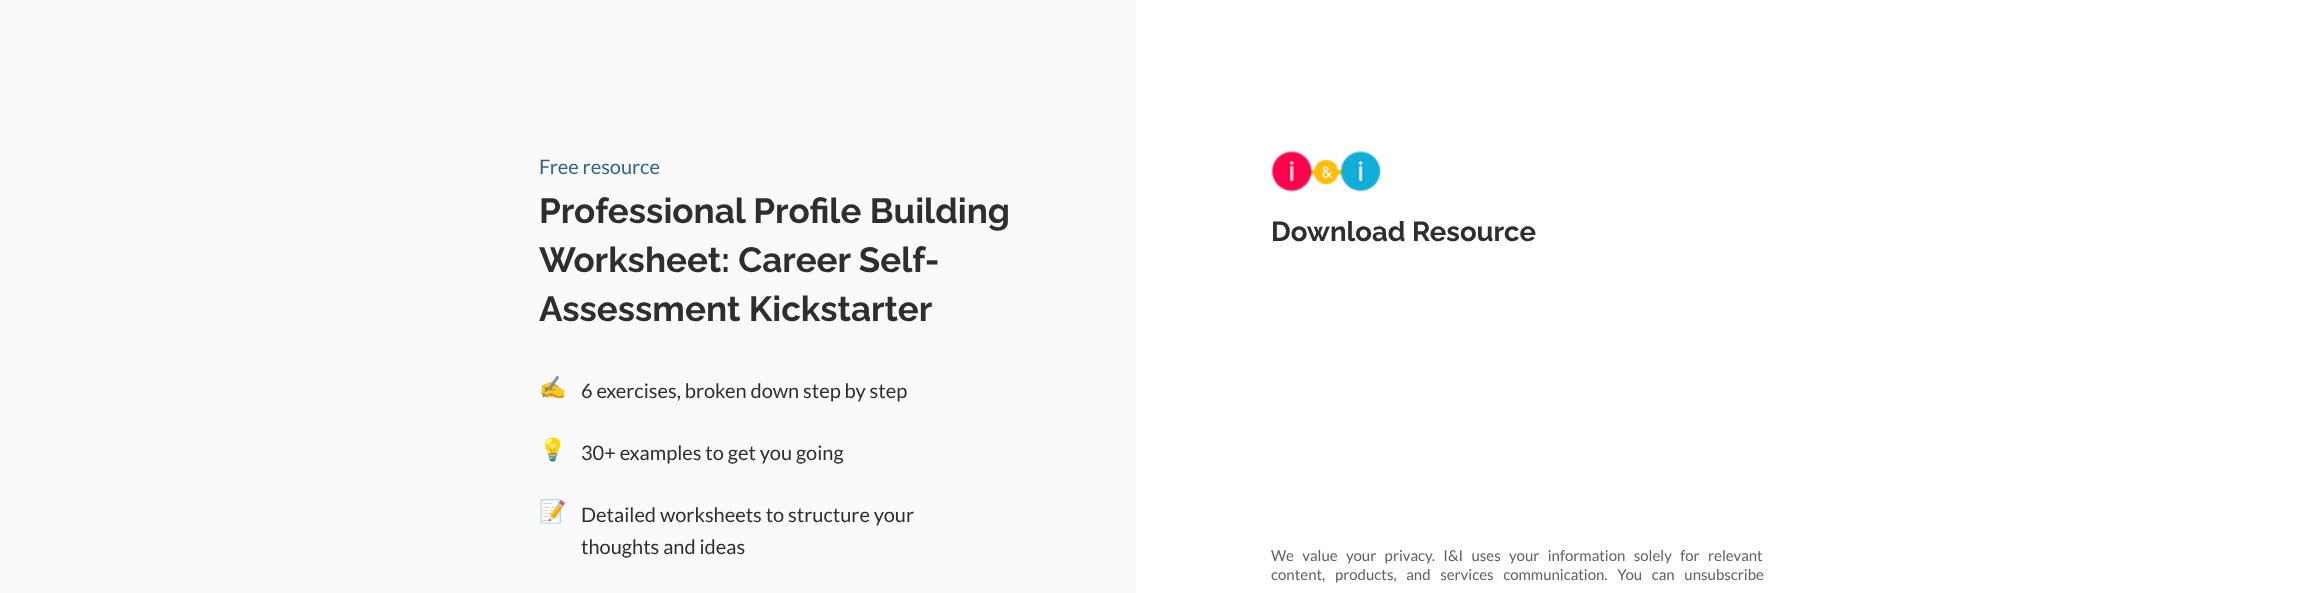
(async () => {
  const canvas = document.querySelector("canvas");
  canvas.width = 2302;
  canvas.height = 593;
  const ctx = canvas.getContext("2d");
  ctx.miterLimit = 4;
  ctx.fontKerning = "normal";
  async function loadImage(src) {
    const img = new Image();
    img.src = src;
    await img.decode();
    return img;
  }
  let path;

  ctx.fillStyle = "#ffffff";
  ctx.fillRect(0, 0, 2302, 593);
  ctx.fillStyle = "#fafafa";
  path = new Path2D("M0 0H1131C1134 0 1136 2 1136 5V593C1136 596 1134 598 1131 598H0Z");
  ctx.fill(path);
  ctx.drawImage(await loadImage("img/1.png"), 1271, 151, 110, 41);
  ctx.font = "20px Lato";
  ctx.fillStyle = "#33658a";
  ctx.fillText("Free resource", 539, 174);
  ctx.font = "bold 35px Raleway";
  ctx.fillStyle = "#2e2e2e";
  for (const [text, x, y] of [
    ["Professional Profile Building", 539, 223],
    ["Worksheet: Career Self-", 539, 272],
    ["Assessment Kickstarter", 539, 321],
  ]) {
    ctx.fillText(text, x, y);
  }
  ctx.font = "22px Noto Color Emoji";
  ctx.fillText("✍️", 539, 395);
  ctx.font = "20px Lato";
  ctx.fillText("6 exercises, broken down step by step", 581, 398);
  ctx.font = "22px Noto Color Emoji";
  ctx.fillText("💡", 539, 457);
  ctx.font = "20px Lato";
  ctx.fillText("30+ examples to get you going", 581, 460);
  ctx.font = "22px Noto Color Emoji";
  ctx.fillText("📝", 539, 519);
  ctx.font = "20px Lato";
  ctx.fillText("Detailed worksheets to structure your", 581, 522);
  ctx.fillText("thoughts and ideas", 581, 554);
  ctx.font = "bold 27.5px Raleway";
  ctx.fillText("Download Resource", 1271, 241);
  ctx.wordSpacing = "5.5px";
  ctx.font = "15px Lato";
  ctx.fillStyle = "#616161";
  ctx.fillText("We value your privacy. I&I uses your information solely for relevant", 1271, 561);
  ctx.wordSpacing = "6.75px";
  ctx.fillText("content, products, and services communication. You can unsubscribe", 1271, 580);
})();
